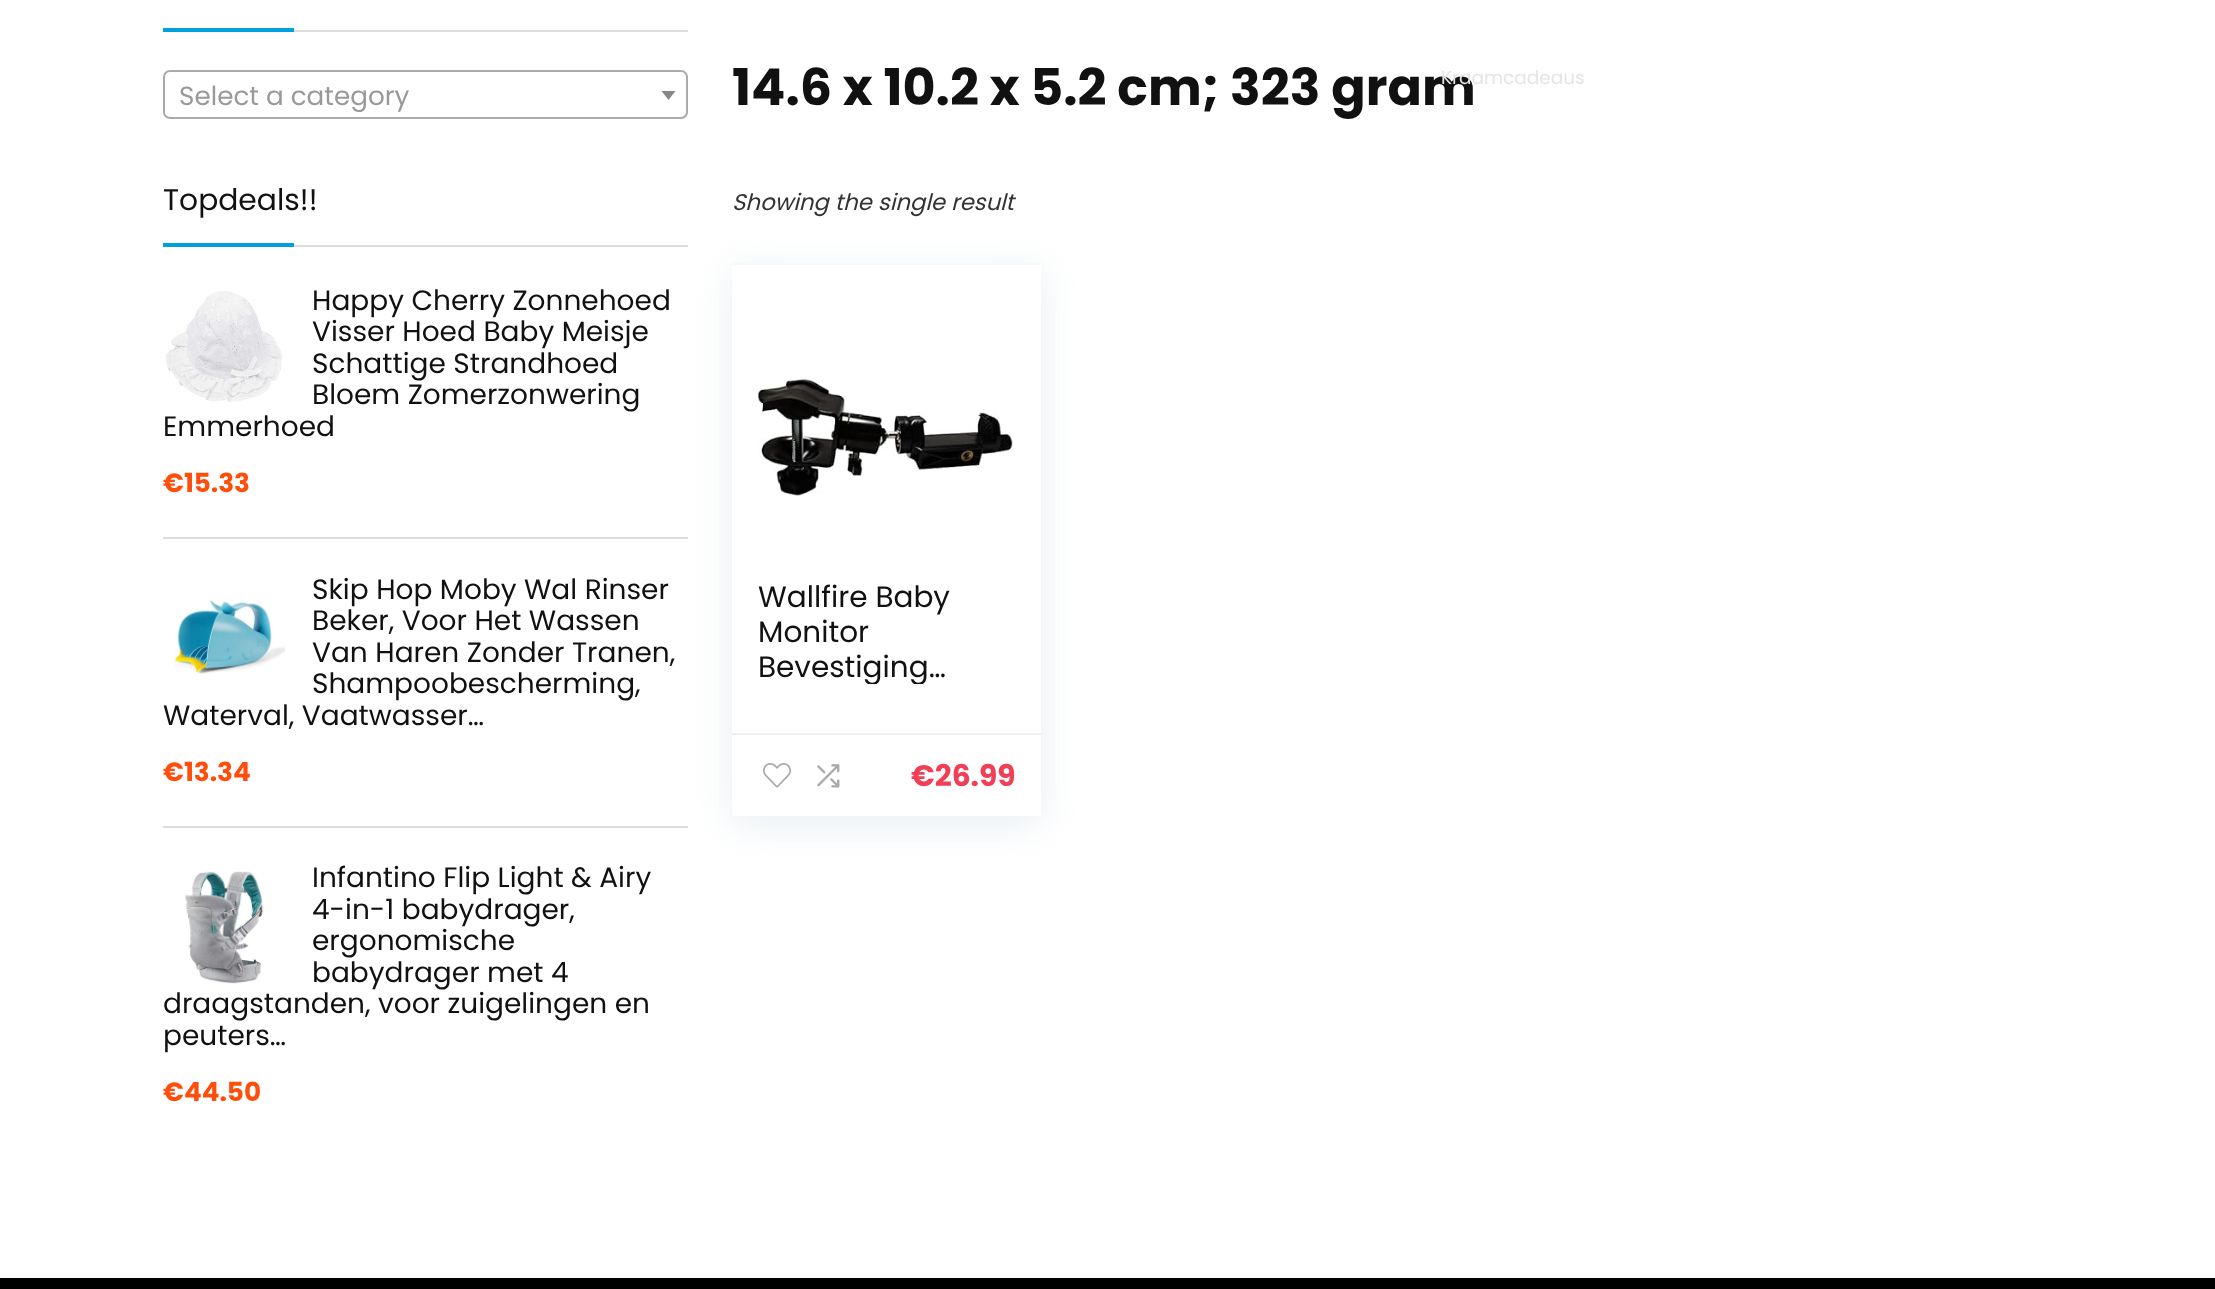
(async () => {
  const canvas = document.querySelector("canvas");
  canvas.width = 2215;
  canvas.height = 1289;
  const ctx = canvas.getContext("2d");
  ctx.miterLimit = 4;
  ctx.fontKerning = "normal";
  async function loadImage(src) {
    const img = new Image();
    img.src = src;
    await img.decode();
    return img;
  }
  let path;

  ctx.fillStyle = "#ffffff";
  ctx.fillRect(0, 0, 2215, 1289);
  ctx.fillStyle = "#dddddd";
  ctx.fillRect(294, 30, 394, 2);
  ctx.fillStyle = "#019fde";
  ctx.fillRect(163, 28, 131, 4);
  ctx.beginPath();
  ctx.roundRect(164, 71, 523, 47, 6);
  ctx.strokeStyle = "#aaaaaa";
  ctx.lineWidth = 2;
  ctx.stroke();
  ctx.fillStyle = "#888888";
  path = new Path2D("M661.5 91H675.5L668.5 100Z");
  ctx.fill(path);
  for (const [x, y, w, h, color] of [
    [294, 245, 394, 2, "#dddddd"],
    [163, 243, 131, 4, "#019fde"],
    [163, 537, 525, 2, "#dddddd"],
  ]) {
    ctx.fillStyle = color;
    ctx.fillRect(x, y, w, h);
  }
  ctx.drawImage(await loadImage("img/1.png"), 166, 291, 116, 111);
  ctx.fillRect(163, 826, 525, 2);
  ctx.drawImage(await loadImage("img/2.png"), 174, 600, 112, 74);
  ctx.drawImage(await loadImage("img/3.png"), 185, 871, 79, 113);
  ctx.fillStyle = "rgba(188, 207, 219, 0.35)";
  ctx.filter = "blur(20px)";
  ctx.beginPath();
  ctx.rect(732, 271, 309, 553);
  ctx.fill();
  ctx.filter = "none";
  ctx.fillStyle = "#ffffff";
  ctx.fillRect(732, 265, 309, 551);
  ctx.fillStyle = "#f8f8f8";
  ctx.fillRect(732, 263, 309, 2);
  ctx.drawImage(await loadImage("img/4.png"), 757, 377, 258, 119);
  ctx.fillStyle = "#f0f0f0";
  ctx.fillRect(732, 733, 309, 2);
  ctx.drawImage(await loadImage("img/5.png"), 763, 763, 28, 25);
  ctx.drawImage(await loadImage("img/6.png"), 817, 764, 23, 24);
  ctx.fillStyle = "#000000";
  ctx.fillRect(0, 1278, 2215, 11);
  ctx.font = "26.25px Poppins";
  ctx.fillStyle = "#999999";
  ctx.fillText("Select a category", 179, 105);
  ctx.font = "29.75px Poppins";
  ctx.fillStyle = "#111111";
  ctx.fillText("Topdeals!!", 163, 210);
  ctx.font = "28px Poppins";
  for (const [text, x, y] of [
    ["Happy Cherry Zonnehoed", 312, 310],
    ["Visser Hoed Baby Meisje", 312, 341],
    ["Schattige Strandhoed", 312, 373],
    ["Bloem Zomerzonwering", 312, 404],
    ["Emmerhoed", 163, 436],
  ]) {
    ctx.fillText(text, x, y);
  }
  ctx.font = "bold 26.25px Poppins";
  ctx.fillStyle = "#ff4e0c";
  ctx.fillText("€15.33", 163, 492);
  ctx.font = "28px Poppins";
  ctx.fillStyle = "#111111";
  for (const [text, x, y] of [
    ["Skip Hop Moby Wal Rinser", 312, 599],
    ["Beker, Voor Het Wassen", 312, 630],
    ["Van Haren Zonder Tranen,", 312, 662],
    ["Shampoobescherming,", 312, 693],
    ["Waterval, Vaatwasser…", 163, 725],
  ]) {
    ctx.fillText(text, x, y);
  }
  ctx.font = "bold 26.25px Poppins";
  ctx.fillStyle = "#ff4e0c";
  ctx.fillText("€13.34", 163, 781);
  ctx.font = "28px Poppins";
  ctx.fillStyle = "#111111";
  for (const [text, x, y] of [
    ["Infantino Flip Light & Airy", 312, 887],
    ["4-in-1 babydrager,", 312, 919],
    ["ergonomische", 312, 950],
    ["babydrager met 4", 312, 982],
    ["draagstanden, voor zuigelingen en", 163, 1013],
    ["peuters…", 163, 1045],
  ]) {
    ctx.fillText(text, x, y);
  }
  ctx.font = "bold 26.25px Poppins";
  ctx.fillStyle = "#ff4e0c";
  ctx.fillText("€44.50", 163, 1101);
  ctx.font = "bold 50.75px Poppins";
  ctx.fillStyle = "#111111";
  ctx.fillText("14.6 x 10.2 x 5.2 cm; 323 gram", 732, 105);
  ctx.font = "italic 22.75px Poppins";
  ctx.fillStyle = "#333333";
  ctx.fillText("Showing the single result", 732, 210);
  ctx.font = "29.5px Poppins";
  ctx.fillStyle = "#111111";
  ctx.fillText("Wallfire Baby", 758, 607);
  ctx.fillText("Monitor", 758, 642);
  ctx.save();
  ctx.beginPath();
  ctx.rect(758, 579, 231, 105);
  ctx.clip();
  ctx.fillText("Bevestiging…", 758, 677);
  ctx.restore();
  ctx.font = "bold 29.75px Poppins";
  ctx.fillStyle = "#f04057";
  ctx.fillText("€26.99", 911, 786);
  ctx.font = "18.5px Poppins";
  ctx.fillStyle = "#e5e5e5";
  ctx.fillText("Kraamcadeaus", 1441, 84);
})();
